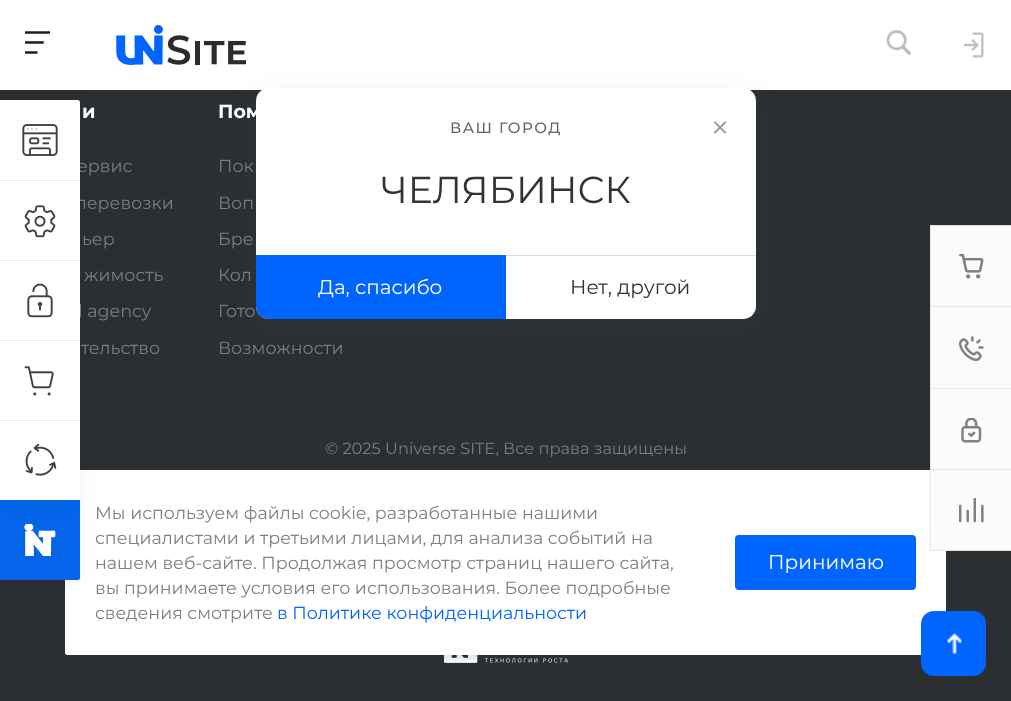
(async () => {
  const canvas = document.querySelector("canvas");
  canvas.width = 1011;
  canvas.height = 701;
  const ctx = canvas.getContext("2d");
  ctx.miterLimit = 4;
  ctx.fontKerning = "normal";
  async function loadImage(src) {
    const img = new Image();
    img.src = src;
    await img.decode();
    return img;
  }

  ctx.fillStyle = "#2b2f32";
  ctx.fillRect(0, 0, 1011, 701);
  ctx.fillStyle = "#ffffff";
  ctx.fillRect(0, 0, 1011, 90);
  ctx.drawImage(await loadImage("img/15.png"), 444, 655, 124, 8);
  ctx.save();
  ctx.beginPath();
  ctx.rect(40, 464, 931, 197);
  ctx.clip();
  ctx.fillStyle = "rgba(34, 60, 80, 0.2)";
  ctx.filter = "blur(5px)";
  ctx.beginPath();
  ctx.roundRect(65, 473, 881, 185, 2.5);
  ctx.fill();
  ctx.filter = "none";
  ctx.restore();
  ctx.beginPath();
  ctx.roundRect(65, 470, 881, 185, 2.5);
  ctx.fill();
  ctx.fillStyle = "rgba(27, 30, 37, 0.08)";
  ctx.filter = "blur(7.5px)";
  ctx.beginPath();
  ctx.roundRect(0, 500, 80, 80, 2.5);
  ctx.fill();
  ctx.filter = "none";
  ctx.fillStyle = "#0465eb";
  ctx.beginPath();
  ctx.roundRect(0, 500, 80, 80, [0, 0, 2.5, 0]);
  ctx.fill();
  ctx.fillStyle = "rgba(27, 30, 37, 0.08)";
  ctx.filter = "blur(7.5px)";
  ctx.beginPath();
  ctx.roundRect(0, 100, 80, 400, 2.5);
  ctx.fill();
  ctx.filter = "none";
  for (const [x, y, w, h, color] of [
    [0, 180, 80, 1, "#f2f2f2"],
    [0, 260, 80, 1, "#f2f2f2"],
    [0, 341, 80, 79, "#ffffff"],
    [0, 340, 80, 1, "#f2f2f2"],
  ]) {
    ctx.fillStyle = color;
    ctx.fillRect(x, y, w, h);
  }
  ctx.drawImage(await loadImage("img/4.png"), 24, 366, 30, 30);
  ctx.fillStyle = "#ffffff";
  ctx.fillRect(0, 421, 80, 79);
  ctx.fillStyle = "#f2f2f2";
  ctx.fillRect(0, 420, 80, 1);
  ctx.drawImage(await loadImage("img/5.png"), 25, 443, 32, 33);
  ctx.drawImage(await loadImage("img/6.png"), 25, 31, 25, 23);
  ctx.drawImage(await loadImage("img/7.png"), 116, 25, 130, 40);
  ctx.drawImage(await loadImage("img/8.png"), 886, 30, 25, 25);
  ctx.drawImage(await loadImage("img/9.png"), 964, 32, 20, 26);
  for (const [x, y, w, h, color] of [
    [931, 226, 80, 324, "#fbfbfb"],
    [930, 225, 81, 1, "#e7e7e7"],
    [930, 550, 81, 1, "#e7e7e7"],
    [930, 225, 1, 326, "#e7e7e7"],
    [931, 306, 80, 1, "#e7e7e7"],
  ]) {
    ctx.fillStyle = color;
    ctx.fillRect(x, y, w, h);
  }
  ctx.drawImage(await loadImage("img/10.png"), 959, 254, 25, 25);
  ctx.fillRect(931, 388, 80, 1);
  ctx.drawImage(await loadImage("img/11.png"), 959, 336, 25, 25);
  ctx.fillRect(931, 469, 80, 1);
  ctx.drawImage(await loadImage("img/12.png"), 961, 418, 21, 25);
  ctx.drawImage(await loadImage("img/13.png"), 959, 498, 25, 25);
  ctx.fillStyle = "#0065ff";
  ctx.beginPath();
  ctx.roundRect(921, 611, 65, 65, 13);
  ctx.fill();
  ctx.drawImage(await loadImage("img/14.png"), 947, 633, 15, 22);
  ctx.fillStyle = "rgba(83, 92, 105, 0.12)";
  ctx.filter = "blur(13px)";
  ctx.beginPath();
  ctx.roundRect(256, 96, 500, 232, 13);
  ctx.fill();
  ctx.filter = "none";
  ctx.fillStyle = "#ffffff";
  ctx.beginPath();
  ctx.roundRect(256, 88, 500, 231, 13);
  ctx.fill();
  ctx.drawImage(await loadImage("img/16.png"), 713, 121, 14, 13);
  ctx.fillStyle = "#dcdcdc";
  ctx.fillRect(506, 255, 250, 1);
  ctx.fillStyle = "#0065ff";
  ctx.beginPath();
  ctx.roundRect(256, 255, 250, 64, [0, 0, 0, 13]);
  ctx.fill();
  ctx.drawImage(await loadImage("img/17.png"), 24, 524, 32, 32);
  ctx.beginPath();
  ctx.roundRect(736.5, 536.5, 178, 52, 2.5);
  ctx.fill();
  ctx.strokeStyle = "#0065ff";
  ctx.lineWidth = 3;
  ctx.stroke();
  ctx.font = "bold 19px Montserrat";
  ctx.fillStyle = "#ffffff";
  ctx.fillText("и", 82, 118);
  ctx.font = "17.5px Montserrat";
  ctx.fillStyle = "#777e89";
  ctx.fillText("ервис", 77, 172);
  ctx.fillStyle = "#ffffff";
  ctx.beginPath();
  ctx.roundRect(0, 100, 80, 80, [0, 2.5, 0, 0]);
  ctx.fill();
  ctx.drawImage(await loadImage("img/1.png"), 22, 124, 36, 32);
  ctx.fillStyle = "#777e89";
  ctx.fillText("перевозки", 75, 209);
  ctx.fillStyle = "#ffffff";
  ctx.fillRect(0, 181, 80, 79);
  ctx.drawImage(await loadImage("img/2.png"), 24, 205, 32, 33);
  ctx.fillStyle = "#777e89";
  for (const [text, x, y] of [
    ["ьер", 82, 245],
    ["жимость", 84, 281],
    ["l agency", 78, 317],
  ]) {
    ctx.fillText(text, x, y);
  }
  ctx.fillStyle = "#ffffff";
  ctx.fillRect(0, 261, 80, 79);
  ctx.drawImage(await loadImage("img/3.png"), 27, 283, 26, 35);
  ctx.fillStyle = "#777e89";
  ctx.fillText("тельство", 81, 354);
  ctx.font = "bold 19px Montserrat";
  ctx.fillStyle = "#ffffff";
  ctx.fillText("Пом", 218, 118);
  ctx.font = "17.5px Montserrat";
  ctx.fillStyle = "#777e89";
  for (const [text, x, y] of [
    ["Пок", 218, 172],
    ["Воп", 218, 209],
    ["Бре", 218, 245],
    ["Кол", 218, 281],
    ["Гото", 218, 317],
    ["Возможности", 218, 354],
  ]) {
    ctx.fillText(text, x, y);
  }
  ctx.font = "16.25px Montserrat";
  ctx.fillText("© 2025 Universe SITE, Все права защищены", 325, 454);
  ctx.letterSpacing = "1.5px";
  ctx.font = "500 15px Montserrat";
  ctx.fillStyle = "#666666";
  ctx.fillText("ВАШ ГОРОД", 450, 133);
  ctx.letterSpacing = "0px";
  ctx.font = "37.5px Montserrat";
  ctx.fillStyle = "#333333";
  ctx.fillText("ЧЕЛЯБИНСК", 381, 203);
  ctx.font = "20px Montserrat";
  ctx.fillStyle = "#ffffff";
  ctx.fillText("Да, спасибо", 318, 294);
  ctx.fillStyle = "#333333";
  ctx.fillText("Нет, другой", 570, 294);
  ctx.font = "17.5px Montserrat";
  ctx.fillStyle = "#808080";
  for (const [text, x, y] of [
    ["Мы используем файлы cookie, разработанные нашими", 95, 519],
    ["специалистами и третьими лицами, для анализа событий на", 95, 544],
    ["нашем веб-сайте. Продолжая просмотр страниц нашего сайта,", 95, 569],
    ["вы принимаете условия его использования. Более подробные", 95, 594],
    ["сведения смотрите", 95, 619],
  ]) {
    ctx.fillText(text, x, y);
  }
  ctx.fillStyle = "#0065ff";
  ctx.fillText("в Политике конфиденциальности", 277, 619);
  ctx.font = "20px Montserrat";
  ctx.fillStyle = "#ffffff";
  ctx.fillText("Принимаю", 768, 569);
})();
